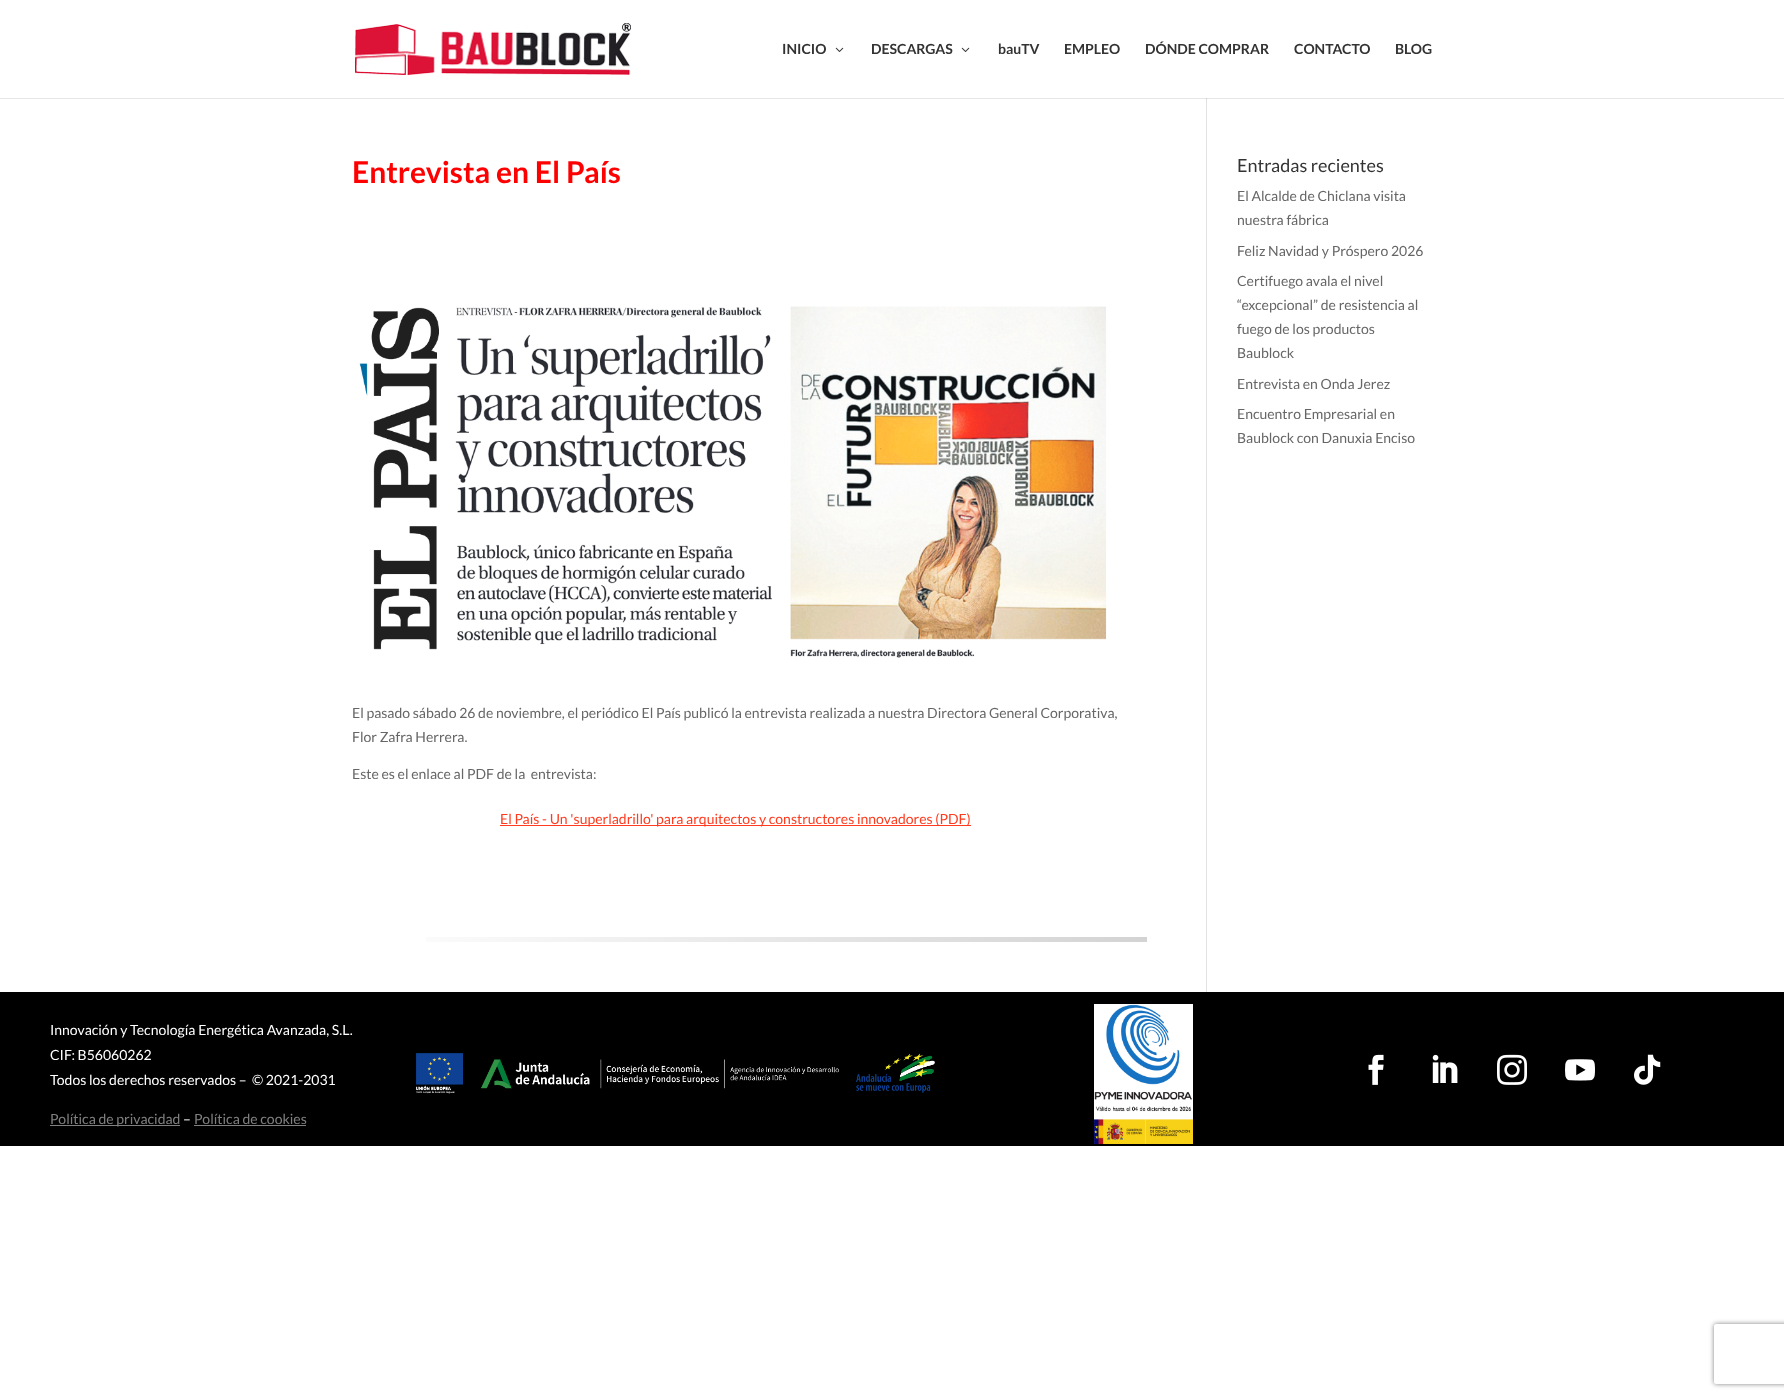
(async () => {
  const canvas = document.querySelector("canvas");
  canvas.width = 1784;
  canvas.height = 1398;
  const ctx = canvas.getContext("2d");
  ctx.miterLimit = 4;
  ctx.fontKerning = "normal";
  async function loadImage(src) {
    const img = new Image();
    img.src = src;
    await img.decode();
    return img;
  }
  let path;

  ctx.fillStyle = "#ffffff";
  ctx.fillRect(0, 0, 1784, 1398);
  ctx.fillStyle = "#e6e6e6";
  ctx.fillRect(0, 98, 1784, 1);
  ctx.drawImage(await loadImage("img/1.png"), 355, 23, 276, 52);
  ctx.drawImage(await loadImage("img/2.png"), 835, 47, 9, 5);
  ctx.drawImage(await loadImage("img/2.png"), 961, 47, 9, 5);
  ctx.fillStyle = "#e2e2e2";
  ctx.fillRect(1206, 98, 1, 894);
  ctx.fillStyle = "#cbcbcb";
  ctx.fillRect(1206, 98, 1, 1);
  ctx.drawImage(await loadImage("img/3.png"), 426, 937, 721, 5);
  ctx.drawImage(await loadImage("img/4.png"), 359, 306, 748, 352);
  for (const [x, y, w, h, color] of [
    [500, 825, 471, 1, "#ff3a1e"],
    [0, 992, 1784, 154, "#000000"],
    [50, 1125, 130, 1, "#808080"],
    [194, 1125, 112, 1, "#808080"],
  ]) {
    ctx.fillStyle = color;
    ctx.fillRect(x, y, w, h);
  }
  ctx.drawImage(await loadImage("img/5.png"), 416, 1053, 519, 41);
  ctx.drawImage(await loadImage("img/6.png"), 1094, 1004, 99, 140);
  ctx.drawImage(await loadImage("img/7.png"), 1368, 1054, 16, 31);
  ctx.drawImage(await loadImage("img/8.png"), 1432, 1054, 26, 29);
  ctx.drawImage(await loadImage("img/9.png"), 1497, 1054, 30, 31);
  ctx.drawImage(await loadImage("img/10.png"), 1565, 1059, 30, 22);
  ctx.drawImage(await loadImage("img/11.png"), 1634, 1054, 27, 31);
  ctx.save();
  path = new Path2D("M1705 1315H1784V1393H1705ZM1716 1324H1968C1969 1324 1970 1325 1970 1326V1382C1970 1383 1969 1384 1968 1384H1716C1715 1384 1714 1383 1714 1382V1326C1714 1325 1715 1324 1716 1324Z");
  ctx.clip(path, "evenodd");
  ctx.filter = "blur(2.5px)";
  ctx.beginPath();
  ctx.roundRect(1714, 1324, 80, 60, 2);
  ctx.fill();
  ctx.filter = "none";
  ctx.restore();
  ctx.font = "bold 14px Lato";
  ctx.fillStyle = "#333333";
  for (const [text, x, y] of [
    ["INICIO", 782, 54],
    ["DESCARGAS", 871, 54],
    ["bauTV", 998, 54],
    ["EMPLEO", 1064, 54],
    ["DÓNDE COMPRAR", 1145, 54],
    ["CONTACTO", 1294, 54],
    ["BLOG", 1395, 54],
  ]) {
    ctx.fillText(text, x, y);
  }
  ctx.font = "bold 30px Lato";
  ctx.fillStyle = "#ff0000";
  ctx.fillText("Entrevista en El País", 352, 183);
  ctx.font = "14px Lato";
  ctx.fillStyle = "#666666";
  for (const [text, x, y] of [
    ["El pasado sábado 26 de noviembre, el periódico El País publicó la entrevista realizada a nuestra Directora General Corporativa,", 352, 718],
    ["Flor Zafra Herrera.", 352, 742],
    ["Este es el enlace al PDF de la  entrevista:", 352, 779],
  ]) {
    ctx.fillText(text, x, y);
  }
  ctx.fillStyle = "#ff3a1e";
  ctx.fillText("El País - Un 'superladrillo' para arquitectos y constructores innovadores (PDF)", 500, 824);
  ctx.font = "18px Lato";
  ctx.fillStyle = "#333333";
  ctx.fillText("Entradas recientes", 1237, 172);
  ctx.font = "14px Lato";
  ctx.fillStyle = "#666666";
  for (const [text, x, y] of [
    ["El Alcalde de Chiclana visita", 1237, 201],
    ["nuestra fábrica", 1237, 225],
    ["Feliz Navidad y Próspero 2026", 1237, 256],
    ["Certifuego avala el nivel", 1237, 286],
    ["“excepcional” de resistencia al", 1237, 310],
    ["fuego de los productos", 1237, 334],
    ["Baublock", 1237, 358],
    ["Entrevista en Onda Jerez", 1237, 389],
    ["Encuentro Empresarial en", 1237, 419],
    ["Baublock con Danuxia Enciso", 1237, 443],
  ]) {
    ctx.fillText(text, x, y);
  }
  ctx.fillStyle = "#ffffff";
  for (const [text, x, y] of [
    ["Innovación y Tecnología Energética Avanzada, S.L.", 50, 1035],
    ["CIF: B56060262", 50, 1060],
    ["Todos los derechos reservados –", 50, 1085],
    ["© 2021-2031", 252, 1085],
  ]) {
    ctx.fillText(text, x, y);
  }
  ctx.fillStyle = "#808080";
  ctx.fillText("Política de privacidad", 50, 1124);
  ctx.fillStyle = "#ffffff";
  ctx.fillText("–", 183, 1124);
  ctx.fillStyle = "#808080";
  ctx.fillText("Política de cookies", 194, 1124);
})();
